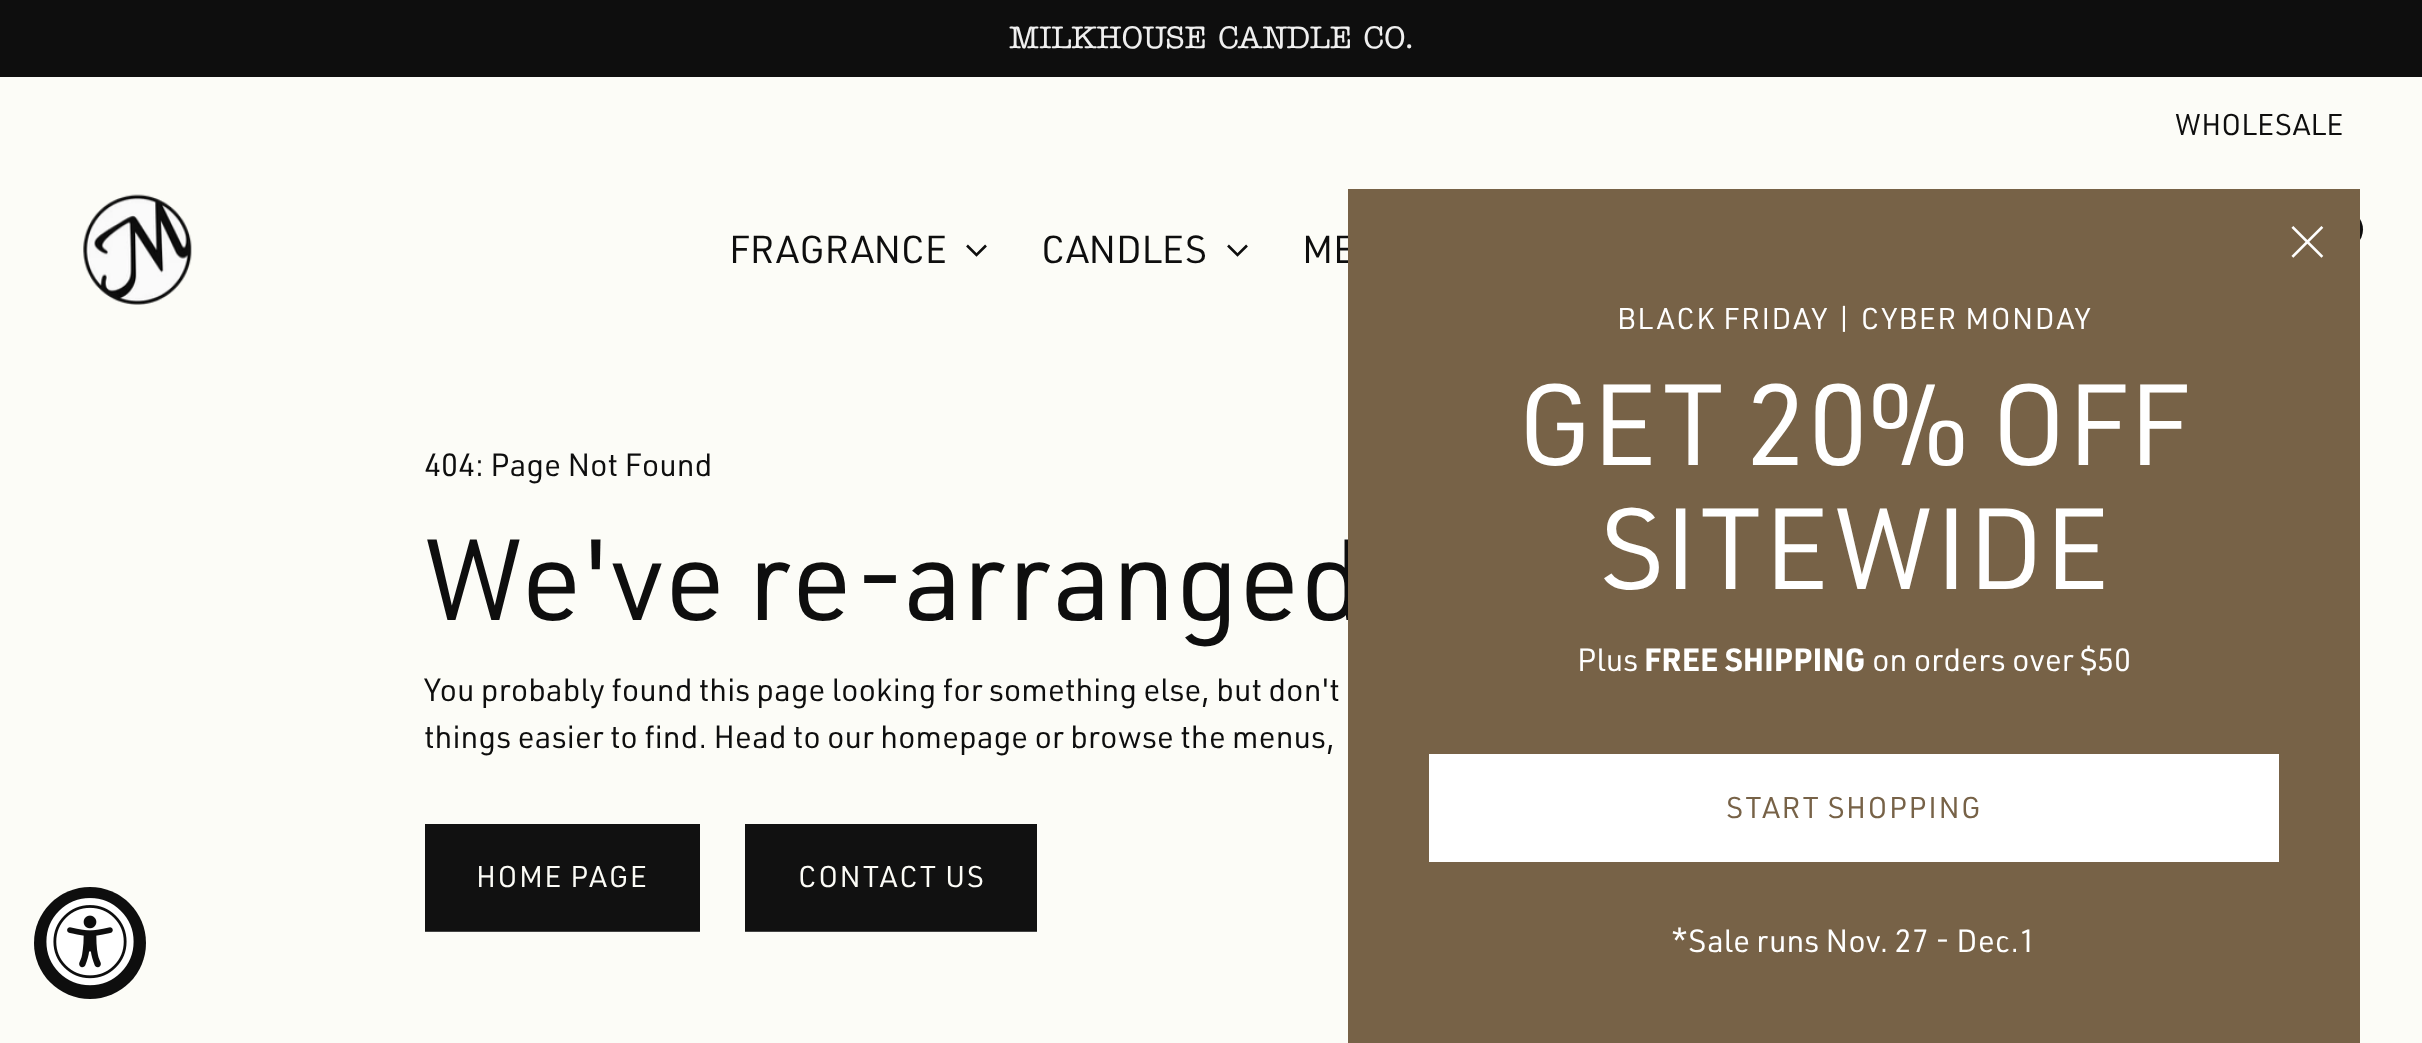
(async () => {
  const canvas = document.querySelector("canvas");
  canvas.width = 2422;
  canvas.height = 1043;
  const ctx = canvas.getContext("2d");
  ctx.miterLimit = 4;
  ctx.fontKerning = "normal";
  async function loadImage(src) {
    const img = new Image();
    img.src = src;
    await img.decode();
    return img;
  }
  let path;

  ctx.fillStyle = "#fcfcf7";
  ctx.fillRect(0, 0, 2422, 1043);
  ctx.fillStyle = "#0e0e0e";
  ctx.beginPath();
  ctx.arc(90, 943, 56, 0, Math.PI * 2);
  ctx.fill();
  ctx.drawImage(await loadImage("img/1.png"), 46, 898, 88, 88);
  ctx.fillRect(0, 0, 2422, 77);
  ctx.drawImage(await loadImage("img/2.png"), 83, 194, 109, 111);
  path = new Path2D("M967 245.5L976.5 255L986 245.5");
  ctx.strokeStyle = "#0e0e0e";
  ctx.lineWidth = 2.6;
  ctx.stroke(path);
  path = new Path2D("M1228 245.5L1237.5 255L1247 245.5");
  ctx.stroke(path);
  ctx.beginPath();
  ctx.arc(2342.5, 229.5, 20.5, 0, Math.PI * 2);
  ctx.fill();
  ctx.save();
  ctx.beginPath();
  ctx.rect(425, 824, 275, 108);
  ctx.clip();
  ctx.fillStyle = "#111111";
  path = new Path2D("M338 823H724L787 931H400Z");
  ctx.fill(path);
  ctx.restore();
  ctx.fillStyle = "#444444";
  ctx.fillRect(425, 931, 275, 1);
  ctx.save();
  ctx.beginPath();
  ctx.rect(745, 824, 292, 108);
  ctx.clip();
  ctx.fillStyle = "#111111";
  path = new Path2D("M656 823H1064L1126 931H718Z");
  ctx.fill(path);
  ctx.restore();
  ctx.fillRect(745, 931, 292, 1);
  ctx.font = "500 31.5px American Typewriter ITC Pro";
  ctx.fillStyle = "#efefef";
  ctx.fillText("MILKHOUSE CANDLE CO.", 1009, 48);
  ctx.font = "29.4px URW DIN";
  ctx.fillStyle = "#0e0e0e";
  ctx.fillText("WHOLESALE", 2175, 135);
  ctx.letterSpacing = "-0.25px";
  ctx.font = "38.25px URW DIN";
  for (const [text, x, y] of [
    ["FRAGRANCE", 729, 263],
    ["CANDLES", 1041, 263],
    ["ME", 1302, 263],
  ]) {
    ctx.fillText(text, x, y);
  }
  ctx.letterSpacing = "0px";
  ctx.font = "31.5px URW DIN";
  ctx.fillText("404: Page Not Found", 424, 476);
  ctx.font = "112.75px URW DIN";
  ctx.fillText("We've re-arranged", 424, 620);
  ctx.font = "31.5px URW DIN";
  ctx.fillText("You probably found this page looking for something else, but don't", 424, 701);
  ctx.fillText("things easier to find. Head to our homepage or browse the menus,", 424, 748);
  ctx.letterSpacing = "1.5px";
  ctx.font = "29.4px URW DIN";
  ctx.fillStyle = "#fcfcf7";
  ctx.fillText("HOME PAGE", 476, 887);
  ctx.fillText("CONTACT US", 798, 887);
  ctx.fillStyle = "#776247";
  ctx.fillRect(1348, 189, 1012, 854);
  ctx.drawImage(await loadImage("img/3.png"), 2291, 226, 33, 32);
  ctx.fillStyle = "#ffffff";
  ctx.fillText("BLACK FRIDAY | CYBER MONDAY", 1617, 329);
  ctx.letterSpacing = "0px";
  ctx.font = "112.75px URW DIN";
  ctx.fillText("GET 20% OFF", 1517, 465);
  ctx.fillText("SITEWIDE", 1599, 589);
  ctx.font = "31.5px URW DIN";
  ctx.fillText("Plus", 1577, 671);
  ctx.font = "bold 31.5px URW DIN";
  ctx.fillText("FREE SHIPPING", 1644, 671);
  ctx.font = "31.5px URW DIN";
  ctx.fillText("on orders over $50", 1872, 671);
  ctx.save();
  ctx.beginPath();
  ctx.rect(1429, 754, 850, 108);
  ctx.clip();
  path = new Path2D("M1227 754H2418L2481 862H1290Z");
  ctx.fill(path);
  ctx.restore();
  ctx.letterSpacing = "1.5px";
  ctx.font = "29.4px URW DIN";
  ctx.fillStyle = "#776247";
  ctx.fillText("START SHOPPING", 1726, 818);
  ctx.letterSpacing = "0px";
  ctx.font = "31.5px URW DIN";
  ctx.fillStyle = "#ffffff";
  ctx.fillText("*Sale runs Nov. 27 - Dec.1", 1671, 952);
})();
